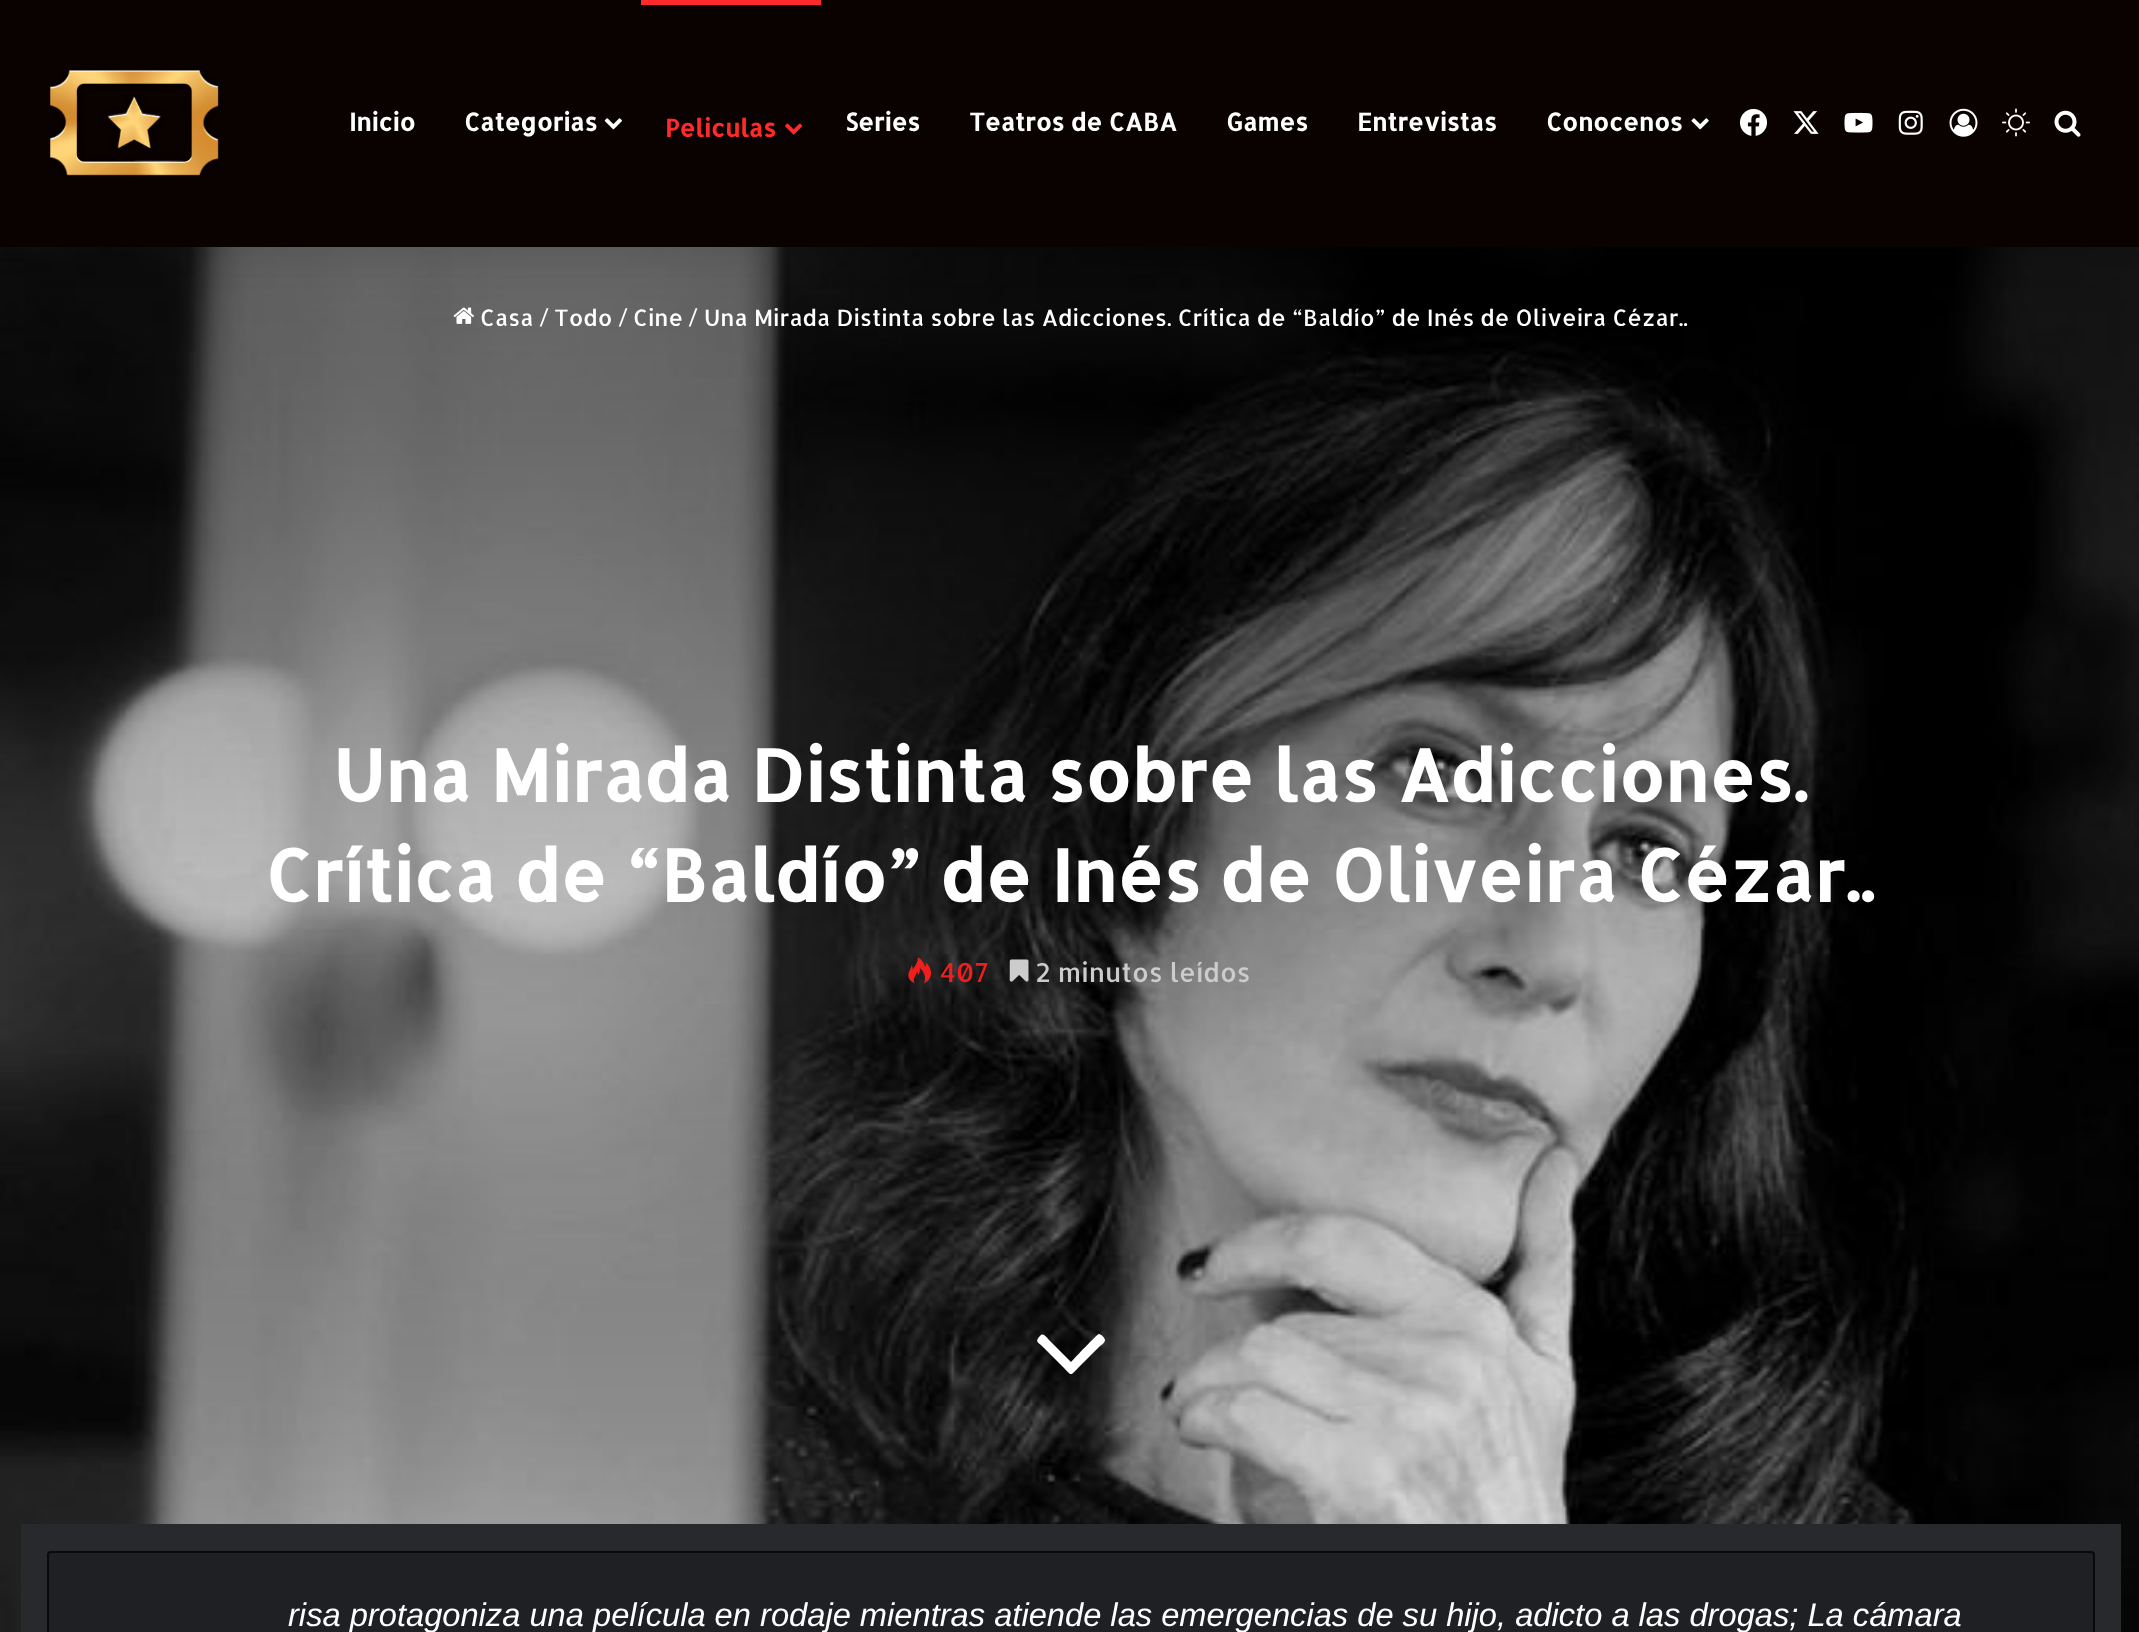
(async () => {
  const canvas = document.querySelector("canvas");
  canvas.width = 2139;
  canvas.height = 1632;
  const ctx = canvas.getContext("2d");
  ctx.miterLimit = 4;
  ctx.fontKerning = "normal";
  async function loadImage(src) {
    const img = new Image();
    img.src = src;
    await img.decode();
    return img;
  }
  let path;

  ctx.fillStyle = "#ffffff";
  ctx.fillRect(0, 0, 2139, 1632);
  ctx.drawImage(await loadImage("img/1.png"), 0, 247, 2139, 1385);
  ctx.drawImage(await loadImage("img/13.png"), 453, 307, 21, 17);
  ctx.fillStyle = "rgba(0, 0, 0, 0.1)";
  ctx.filter = "blur(17.5px)";
  ctx.beginPath();
  ctx.rect(35, 79, 2070, 177);
  ctx.fill();
  ctx.filter = "none";
  ctx.fillStyle = "#0a0101";
  ctx.fillRect(0, 0, 2139, 247);
  ctx.drawImage(await loadImage("img/2.png"), 50, 70, 169, 106);
  ctx.drawImage(await loadImage("img/3.png"), 604, 118, 18, 12);
  ctx.fillStyle = "#ff2b2b";
  ctx.fillRect(641, 0, 180, 5);
  ctx.drawImage(await loadImage("img/4.png"), 785, 123, 18, 12);
  ctx.drawImage(await loadImage("img/5.png"), 1691, 118, 18, 12);
  ctx.drawImage(await loadImage("img/6.png"), 1739, 108, 29, 28);
  ctx.drawImage(await loadImage("img/7.png"), 1793, 111, 26, 23);
  ctx.drawImage(await loadImage("img/8.png"), 1844, 112, 29, 21);
  ctx.drawImage(await loadImage("img/9.png"), 1898, 110, 25, 25);
  ctx.drawImage(await loadImage("img/10.png"), 1949, 108, 29, 29);
  ctx.drawImage(await loadImage("img/11.png"), 2002, 108, 28, 29);
  ctx.drawImage(await loadImage("img/12.png"), 2054, 110, 27, 27);
  ctx.drawImage(await loadImage("img/14.png"), 908, 957, 24, 27);
  ctx.drawImage(await loadImage("img/15.png"), 1009, 959, 20, 23);
  ctx.fillStyle = "#ffffff";
  path = new Path2D("M1105 1340C1105 1343 1101 1345 1099 1347L1078 1368C1070 1376 1072 1376 1064 1368L1043 1347C1038 1342 1035 1342 1039 1337L1041 1335C1044 1333 1048 1339 1049 1340L1071 1362C1074 1359 1097 1334 1099 1334C1101 1334 1105 1338 1105 1340Z");
  ctx.fill(path);
  ctx.fillStyle = "#27292d";
  ctx.fillRect(21, 1524, 2100, 108);
  ctx.fillStyle = "#1f2024";
  ctx.beginPath();
  ctx.roundRect(48, 1552, 2046, 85, 3);
  ctx.fill();
  ctx.strokeStyle = "#0a0a0a";
  ctx.lineWidth = 2;
  ctx.stroke();
  ctx.font = "bold 24.5px Allerta";
  ctx.fillStyle = "#ffffff";
  ctx.fillText("Inicio", 349, 131);
  ctx.fillText("Categorias", 464, 131);
  ctx.fillStyle = "#ff2b2b";
  ctx.fillText("Peliculas", 665, 137);
  ctx.fillStyle = "#ffffff";
  for (const [text, x, y] of [
    ["Series", 845, 131],
    ["Teatros de CABA", 969, 131],
    ["Games", 1226, 131],
    ["Entrevistas", 1357, 131],
    ["Conocenos", 1546, 131],
  ]) {
    ctx.fillText(text, x, y);
  }
  ctx.font = "22.75px Allerta";
  for (const [text, x, y] of [
    ["Casa", 480, 326],
    ["/", 539, 326],
    ["Todo", 554, 326],
    ["/", 618, 326],
    ["Cine", 633, 326],
    ["/", 688, 326],
    ["Una Mirada Distinta sobre las Adicciones. Crítica de “Baldío” de Inés de Oliveira Cézar..", 704, 326],
  ]) {
    ctx.fillText(text, x, y);
  }
  ctx.font = "bold 71.75px Allerta";
  ctx.fillText("Una Mirada Distinta sobre las Adicciones.", 333, 802);
  ctx.fillText("Crítica de “Baldío” de Inés de Oliveira Cézar..", 265, 902);
  ctx.font = "26.25px Allerta";
  ctx.fillStyle = "#f11e1e";
  ctx.fillText("407", 940, 982);
  ctx.fillStyle = "#cccccc";
  ctx.fillText("2 minutos leídos", 1035, 982);
  ctx.font = "italic 32.67px Liberation Sans";
  ctx.fillStyle = "#ffffff";
  ctx.fillText("risa protagoniza una película en rodaje mientras atiende las emergencias de su hijo, adicto a las drogas; La cámara", 288, 1626);
})();
